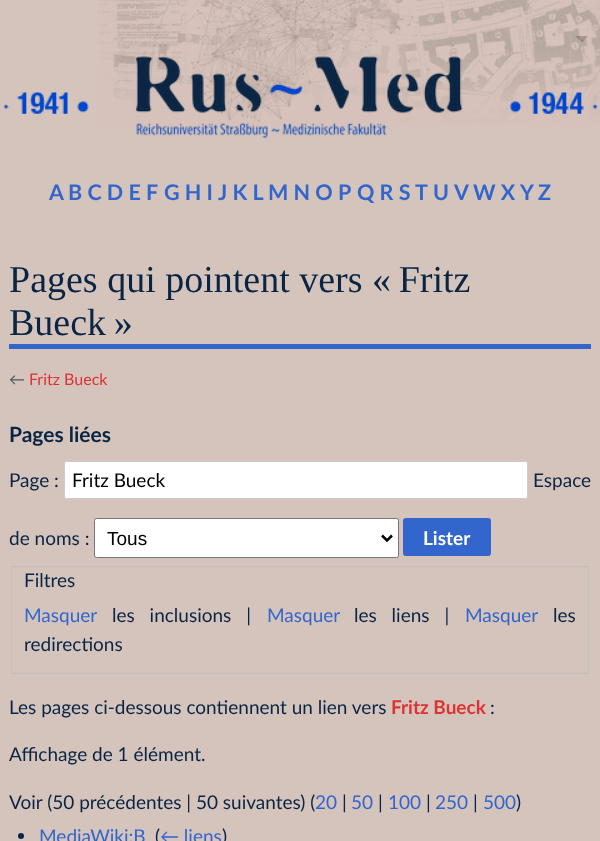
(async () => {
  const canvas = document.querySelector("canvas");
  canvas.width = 600;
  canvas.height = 841;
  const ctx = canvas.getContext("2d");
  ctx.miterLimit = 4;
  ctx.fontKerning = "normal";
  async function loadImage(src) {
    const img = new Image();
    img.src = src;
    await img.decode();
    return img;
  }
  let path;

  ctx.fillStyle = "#d4c4bc";
  ctx.fillRect(0, 0, 600, 841);
  ctx.drawImage(await loadImage("img/1.png"), 97, 0, 503, 127);
  ctx.fillStyle = "rgba(0, 0, 0, 0.21)";
  path = new Path2D("M588 36L582 42.5L575.5 36Z");
  ctx.fill(path);
  ctx.drawImage(await loadImage("img/2.png"), 3, 92, 86, 22);
  ctx.drawImage(await loadImage("img/3.png"), 135, 56, 328, 83);
  ctx.drawImage(await loadImage("img/4.png"), 509, 92, 89, 22);
  ctx.fillStyle = "#3366cc";
  ctx.fillRect(9, 344, 582, 5);
  ctx.fillStyle = "#ffffff";
  ctx.beginPath();
  ctx.roundRect(64.5, 461.5, 463, 37, 2);
  ctx.fill();
  ctx.strokeStyle = "#c8ccd1";
  ctx.stroke();
  ctx.beginPath();
  ctx.roundRect(94.5, 518.5, 304, 39, 2);
  ctx.fill();
  ctx.strokeStyle = "#767676";
  ctx.stroke();
  path = new Path2D("M382 535.5L387 540.5L392 535.5");
  ctx.strokeStyle = "#000000";
  ctx.lineWidth = 2.5;
  ctx.stroke(path);
  ctx.fillStyle = "#3366cc";
  ctx.beginPath();
  ctx.roundRect(403.5, 518.5, 87, 37, 2);
  ctx.fill();
  ctx.strokeStyle = "#3366cc";
  ctx.lineWidth = 1;
  ctx.stroke();
  ctx.strokeStyle = "#c0c0c0";
  ctx.strokeRect(11.5, 566.5, 577, 107);
  ctx.fillStyle = "#0a2544";
  ctx.beginPath();
  ctx.arc(21, 836, 3, 0, Math.PI * 2);
  ctx.fill();
  ctx.font = "bold 21.5px Lato";
  ctx.fillStyle = "#3366cc";
  for (const [text, x, y] of [
    ["A", 49, 200],
    ["B C D E F", 68, 200],
    ["G H I", 164, 200],
    ["J K L", 218, 200],
    ["M N O P", 268, 200],
    ["Q R S", 357, 200],
    ["T", 415, 200],
    ["U", 433, 200],
    ["V", 454, 200],
    ["W X", 473, 200],
    ["Y", 520, 200],
    ["Z", 538, 200],
  ]) {
    ctx.fillText(text, x, y);
  }
  ctx.font = "38px Liberation Serif";
  ctx.fillStyle = "#0a2544";
  ctx.fillText("Pages qui pointent vers « Fritz", 9, 292);
  ctx.fillText("Bueck »", 9, 335);
  ctx.font = "16px Lato";
  ctx.fillStyle = "#54595d";
  ctx.fillText("←", 9, 385);
  ctx.fillStyle = "#dd3333";
  ctx.fillText("Fritz Bueck", 29, 385);
  ctx.font = "bold 21px Lato";
  ctx.fillStyle = "#0a2544";
  ctx.fillText("Pages liées", 9, 442);
  ctx.font = "19px Lato";
  ctx.fillText("Page :", 9, 487);
  ctx.fillStyle = "#000000";
  ctx.fillText("Fritz Bueck", 72, 487);
  ctx.fillStyle = "#0a2544";
  ctx.fillText("Espace", 533, 487);
  ctx.fillText("de noms :", 9, 545);
  ctx.font = "19px Liberation Sans";
  ctx.fillStyle = "#000000";
  ctx.fillText("Tous", 107, 545);
  ctx.font = "bold 19px Lato";
  ctx.fillStyle = "#ffffff";
  ctx.fillText("Lister", 423, 545);
  ctx.font = "19px Lato";
  ctx.fillStyle = "#0a2544";
  ctx.fillText("Filtres", 24, 587);
  ctx.fillStyle = "#3366cc";
  ctx.fillText("Masquer", 24, 622);
  ctx.wordSpacing = "10px";
  ctx.fillStyle = "#0a2544";
  ctx.fillText("les inclusions |", 112, 622);
  ctx.wordSpacing = "0px";
  ctx.fillStyle = "#3366cc";
  ctx.fillText("Masquer", 267, 622);
  ctx.wordSpacing = "10px";
  ctx.fillStyle = "#0a2544";
  ctx.fillText("les liens |", 354, 622);
  ctx.wordSpacing = "0px";
  ctx.fillStyle = "#3366cc";
  ctx.fillText("Masquer", 465, 622);
  ctx.fillStyle = "#0a2544";
  for (const [text, x, y] of [
    ["les", 553, 622],
    ["redirections", 24, 651],
    ["Les pages ci-dessous contiennent un lien vers", 9, 714],
  ]) {
    ctx.fillText(text, x, y);
  }
  ctx.font = "bold 19px Lato";
  ctx.fillStyle = "#dd3333";
  ctx.fillText("Fritz Bueck", 391, 714);
  ctx.font = "19px Lato";
  ctx.fillStyle = "#0a2544";
  for (const [text, x, y] of [
    [":", 490, 714],
    ["Affichage de 1 élément.", 9, 761],
    ["Voir (50 précédentes | 50 suivantes) (", 9, 809],
  ]) {
    ctx.fillText(text, x, y);
  }
  ctx.fillStyle = "#3366cc";
  ctx.fillText("20", 315, 809);
  ctx.fillStyle = "#0a2544";
  ctx.fillText("|", 342, 809);
  ctx.fillStyle = "#3366cc";
  ctx.fillText("50", 351, 809);
  ctx.fillStyle = "#0a2544";
  ctx.fillText("|", 378, 809);
  ctx.fillStyle = "#3366cc";
  ctx.fillText("100", 388, 809);
  ctx.fillStyle = "#0a2544";
  ctx.fillText("|", 426, 809);
  ctx.fillStyle = "#3366cc";
  ctx.fillText("250", 435, 809);
  ctx.fillStyle = "#0a2544";
  ctx.fillText("|", 473, 809);
  ctx.fillStyle = "#3366cc";
  ctx.fillText("500", 483, 809);
  ctx.fillStyle = "#0a2544";
  ctx.fillText(")", 516, 809);
  ctx.fillStyle = "#3366cc";
  ctx.fillText("MediaWiki:B", 39, 843);
  ctx.fillStyle = "#0a2544";
  ctx.fillText("(", 155, 843);
  ctx.fillStyle = "#3366cc";
  ctx.fillText("← liens", 160, 843);
  ctx.fillStyle = "#0a2544";
  ctx.fillText(")", 222, 843);
})();
